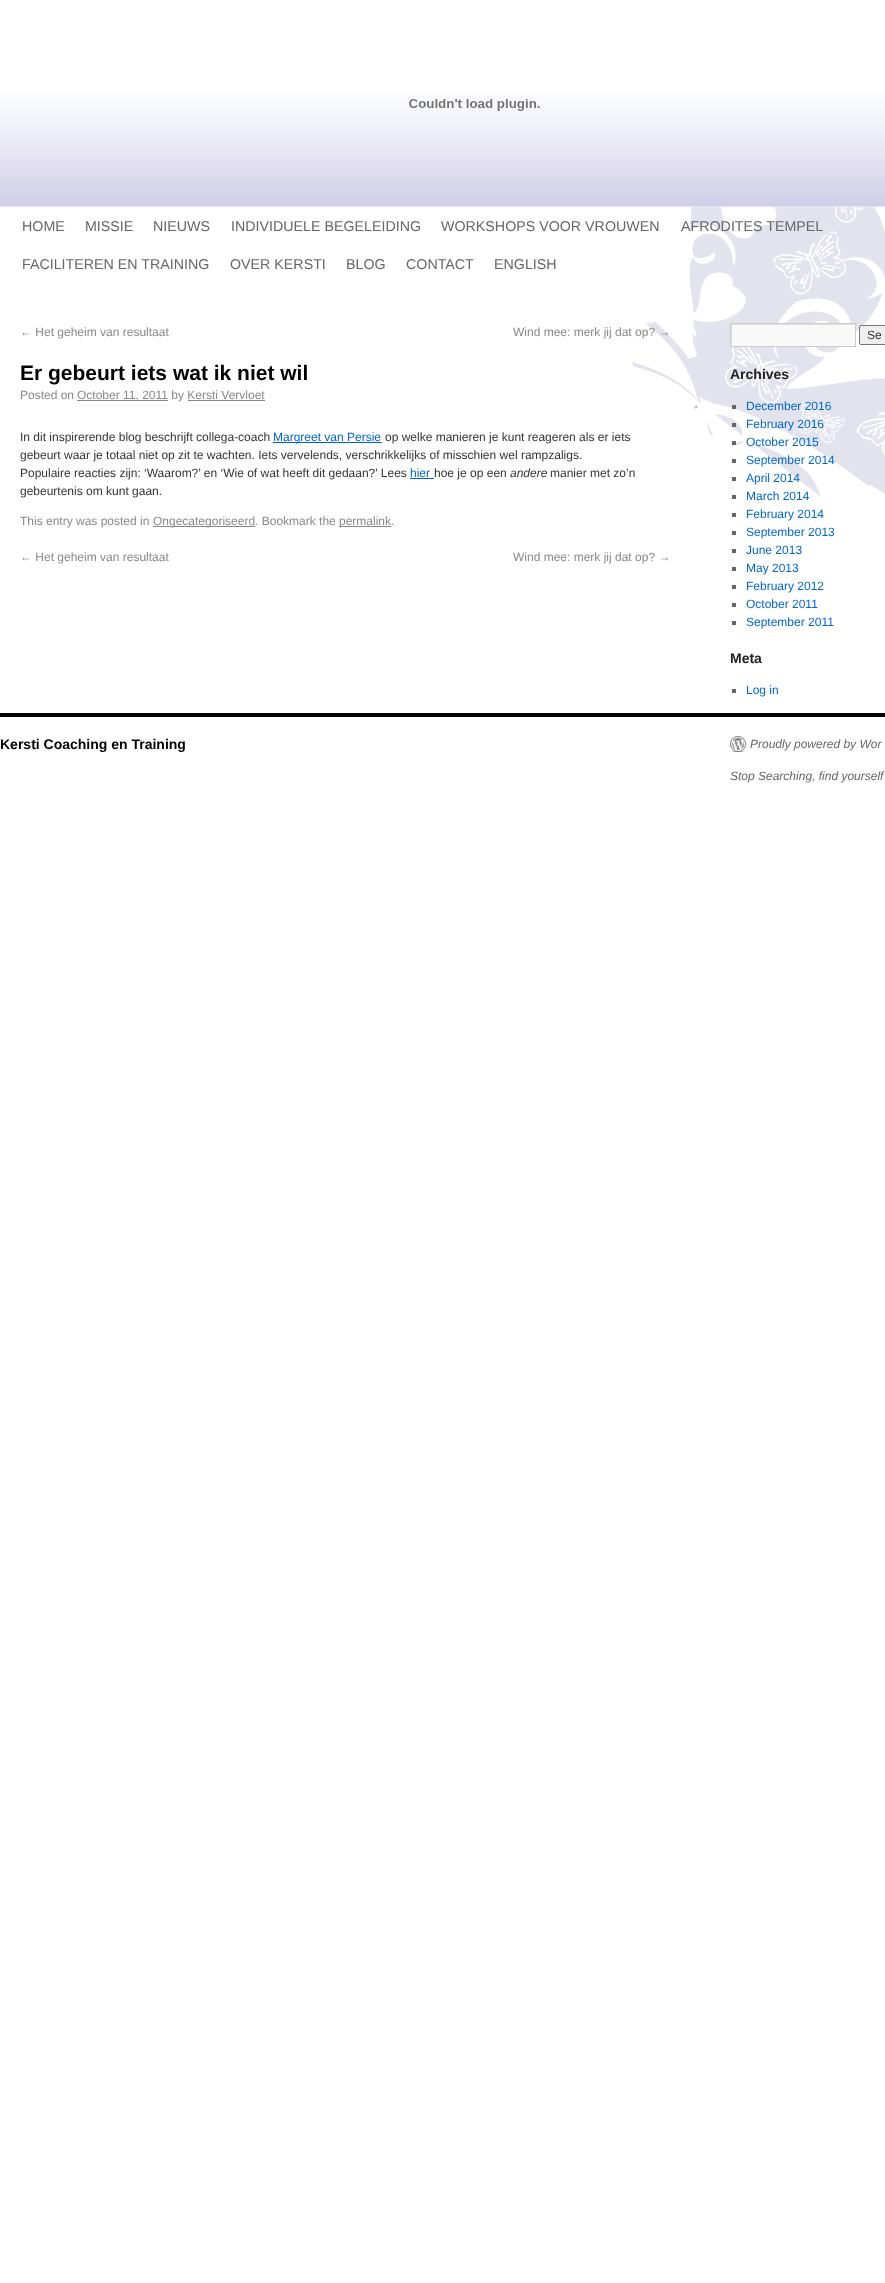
(async () => {
  const canvas = document.querySelector("canvas");
  canvas.width = 885;
  canvas.height = 2283;
  const ctx = canvas.getContext("2d");
  ctx.miterLimit = 4;
  ctx.fontKerning = "normal";
  async function loadImage(src) {
    const img = new Image();
    img.src = src;
    await img.decode();
    return img;
  }
  let path;

  ctx.fillStyle = "#ffffff";
  ctx.fillRect(0, 0, 885, 2283);
  ctx.drawImage(await loadImage("img/1.png"), 0, 93, 885, 114);
  ctx.drawImage(await loadImage("img/2.png"), 632, 207, 253, 289);
  ctx.drawImage(await loadImage("img/3.png"), 409, 99, 131, 12);
  for (const [x, y, w, h, color] of [
    [77, 400, 91, 1, "#888888"],
    [188, 400, 77, 1, "#888888"],
    [273, 442, 109, 1, "#0066cc"],
    [410, 478, 24, 1, "#0066cc"],
    [153, 526, 102, 1, "#888888"],
    [339, 526, 52, 1, "#888888"],
    [732, 325, 123, 21, "#f9f9f9"],
  ]) {
    ctx.fillStyle = color;
    ctx.fillRect(x, y, w, h);
  }
  ctx.save();
  ctx.beginPath();
  ctx.rect(731, 324, 124, 22);
  ctx.clip();
  ctx.fillStyle = "#e0e0e0";
  path = new Path2D("M632 225H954V445H632ZM732 325H856V347H732Z");
  ctx.fill(path, "evenodd");
  ctx.restore();
  ctx.strokeStyle = "#cccccc";
  ctx.strokeRect(730.5, 323.5, 125, 23);
  ctx.fillStyle = "#efefef";
  ctx.beginPath();
  ctx.roundRect(859.5, 325.5, 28, 19, 1.5);
  ctx.fill();
  ctx.strokeStyle = "#767676";
  ctx.stroke();
  for (const [x, y, w, h, color] of [
    [732, 405, 4, 4, "#666666"],
    [732, 423, 4, 4, "#666666"],
    [732, 441, 4, 4, "#666666"],
    [732, 459, 4, 4, "#666666"],
    [732, 477, 4, 4, "#666666"],
    [732, 495, 4, 4, "#666666"],
    [732, 513, 4, 4, "#666666"],
    [732, 531, 4, 4, "#666666"],
    [732, 549, 4, 4, "#666666"],
    [732, 567, 4, 4, "#666666"],
    [732, 585, 4, 4, "#666666"],
    [732, 603, 4, 4, "#666666"],
    [732, 621, 4, 4, "#666666"],
    [732, 689, 4, 4, "#666666"],
    [0, 713, 885, 4, "#000000"],
  ]) {
    ctx.fillStyle = color;
    ctx.fillRect(x, y, w, h);
  }
  ctx.drawImage(await loadImage("img/4.png"), 730, 736, 16, 16);
  ctx.font = "14.25px Liberation Sans";
  ctx.fillStyle = "#666666";
  for (const [text, x, y] of [
    ["HOME", 22, 231],
    ["MISSIE", 85, 231],
    ["NIEUWS", 153, 231],
    ["INDIVIDUELE BEGELEIDING", 231, 231],
    ["WORKSHOPS VOOR VROUWEN", 441, 231],
    ["AFRODITES TEMPEL", 681, 231],
    ["FACILITEREN EN TRAINING", 22, 269],
    ["OVER KERSTI", 230, 269],
    ["BLOG", 346, 269],
    ["CONTACT", 406, 269],
    ["ENGLISH", 494, 269],
  ]) {
    ctx.fillText(text, x, y);
  }
  ctx.font = "12px Liberation Sans";
  ctx.fillStyle = "#888888";
  ctx.fillText("← Het geheim van resultaat", 20, 336);
  ctx.fillText("Wind mee: merk jij dat op? →", 513, 336);
  ctx.font = "bold 21px Liberation Sans";
  ctx.fillStyle = "#000000";
  ctx.fillText("Er gebeurt iets wat ik niet wil", 20, 380);
  ctx.font = "12px Liberation Sans";
  ctx.fillStyle = "#888888";
  ctx.fillText("Posted on", 20, 399);
  ctx.fillText("October 11, 2011 by Kersti Vervloet", 77, 399);
  ctx.fillStyle = "#333333";
  ctx.fillText("In dit inspirerende blog beschrijft collega-coach", 20, 441);
  ctx.fillStyle = "#0066cc";
  ctx.fillText("Margreet van Persie", 273, 441);
  ctx.fillStyle = "#333333";
  for (const [text, x, y] of [
    ["op welke manieren je kunt reageren als er iets", 385, 441],
    ["gebeurt waar je totaal niet op zit te wachten. Iets vervelends, verschrikkelijks of misschien wel rampzaligs.", 20, 459],
    ["Populaire reacties zijn: ‘Waarom?’ en ‘Wie of wat heeft dit gedaan?’ Lees", 20, 477],
  ]) {
    ctx.fillText(text, x, y);
  }
  ctx.fillStyle = "#0066cc";
  ctx.fillText("hier", 410, 477);
  ctx.fillStyle = "#333333";
  ctx.fillText("hoe je op een", 434, 477);
  ctx.font = "italic 12px Liberation Sans";
  ctx.fillText("andere", 510, 477);
  ctx.font = "12px Liberation Sans";
  ctx.fillText("manier met zo’n", 550, 477);
  ctx.fillText("gebeurtenis om kunt gaan.", 20, 495);
  ctx.fillStyle = "#888888";
  for (const [text, x, y] of [
    ["This entry was posted in", 20, 525],
    ["Ongecategoriseerd. Bookmark the", 153, 525],
    ["permalink.", 339, 525],
    ["← Het geheim van resultaat", 20, 561],
    ["Wind mee: merk jij dat op? →", 513, 561],
  ]) {
    ctx.fillText(text, x, y);
  }
  ctx.fillStyle = "#333333";
  ctx.fillText("Se", 867, 339);
  ctx.font = "bold 14px Liberation Sans";
  ctx.fillStyle = "#222222";
  ctx.fillText("Archives", 730, 379);
  ctx.font = "12px Liberation Sans";
  ctx.fillStyle = "#0066cc";
  for (const [text, x, y] of [
    ["December 2016", 746, 410],
    ["February 2016", 746, 428],
    ["October 2015", 746, 446],
    ["September 2014", 746, 464],
    ["April 2014", 746, 482],
    ["March 2014", 746, 500],
    ["February 2014", 746, 518],
    ["September 2013", 746, 536],
    ["June 2013", 746, 554],
    ["May 2013", 746, 572],
    ["February 2012", 746, 590],
    ["October 2011", 746, 608],
    ["September 2011", 746, 626],
  ]) {
    ctx.fillText(text, x, y);
  }
  ctx.font = "bold 14px Liberation Sans";
  ctx.fillStyle = "#222222";
  ctx.fillText("Meta", 730, 663);
  ctx.font = "12px Liberation Sans";
  ctx.fillStyle = "#0066cc";
  ctx.fillText("Log in", 746, 694);
  ctx.font = "bold 14px Liberation Sans";
  ctx.fillStyle = "#000000";
  ctx.fillText("Kersti Coaching en Training", 0, 749);
  ctx.font = "italic 12px Liberation Sans";
  ctx.fillStyle = "#666666";
  ctx.fillText("Proudly powered by Wor", 750, 748);
  ctx.fillText("Stop Searching, find yourself", 730, 780);
})();
